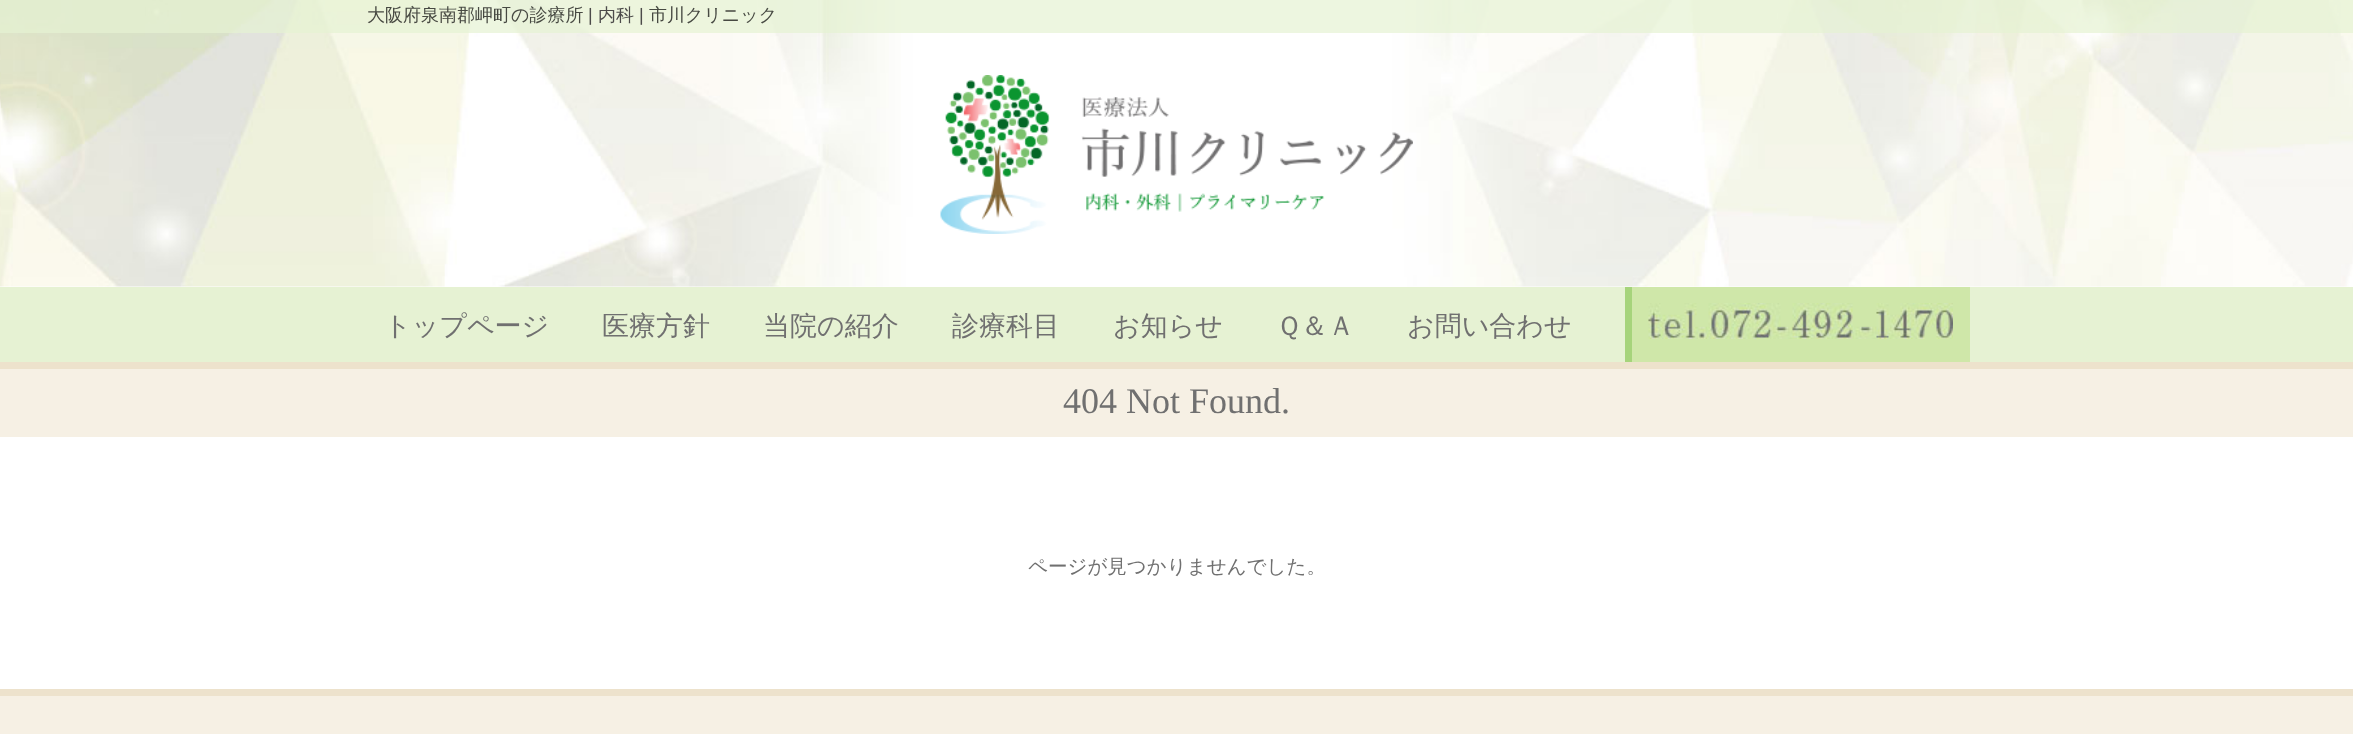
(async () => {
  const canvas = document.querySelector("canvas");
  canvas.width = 2353;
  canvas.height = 734;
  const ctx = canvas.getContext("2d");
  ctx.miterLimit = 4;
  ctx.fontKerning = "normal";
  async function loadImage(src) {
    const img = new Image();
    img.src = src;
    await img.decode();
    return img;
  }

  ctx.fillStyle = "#ffffff";
  ctx.fillRect(0, 0, 2353, 734);
  ctx.drawImage(await loadImage("img/1.png"), 0, 0, 2353, 287);
  ctx.drawImage(await loadImage("img/2.png"), 940, 75, 473, 159);
  for (const [x, y, w, h, color] of [
    [0, 0, 2353, 33, "rgba(230, 242, 211, 0.7)"],
    [0, 287, 2353, 75, "#e6f2d3"],
    [1632, 287, 338, 75, "#cfe7a9"],
    [1625, 287, 7, 75, "#a6d47b"],
  ]) {
    ctx.fillStyle = color;
    ctx.fillRect(x, y, w, h);
  }
  ctx.drawImage(await loadImage("img/3.png"), 1648, 303, 305, 36);
  for (const [x, y, w, h, color] of [
    [0, 369, 2353, 68, "#f6f0e4"],
    [0, 362, 2353, 7, "#ede2cc"],
    [0, 696, 2353, 38, "#f6f0e4"],
    [0, 689, 2353, 7, "#ede2cc"],
  ]) {
    ctx.fillStyle = color;
    ctx.fillRect(x, y, w, h);
  }
  ctx.font = "500 18px WenQuanYi Zen Hei";
  ctx.fillStyle = "#474942";
  ctx.fillText("大阪府泉南郡岬町の診療所", 367, 21);
  ctx.font = "18px Liberation Sans";
  ctx.fillStyle = "#4c4b4a";
  ctx.fillText("|", 588, 21);
  ctx.font = "500 18px WenQuanYi Zen Hei";
  ctx.fillText("内科", 598, 21);
  ctx.font = "18px Liberation Sans";
  ctx.fillText("|", 639, 21);
  ctx.font = "500 18px WenQuanYi Zen Hei";
  ctx.fillStyle = "#474942";
  ctx.fillText("市川クリニック", 649, 21);
  ctx.font = "500 27px WenQuanYi Zen Hei";
  ctx.fillStyle = "#707070";
  for (const [text, x, y] of [
    ["トップページ", 384, 335],
    ["医療方針", 602, 335],
    ["当院の紹介", 763, 335],
    ["診療科目", 952, 335],
    ["お知らせ", 1113, 335],
    ["Ｑ＆Ａ", 1276, 335],
    ["お問い合わせ", 1407, 335],
  ]) {
    ctx.fillText(text, x, y);
  }
  ctx.font = "36px Liberation Serif";
  ctx.fillText("404 Not Found.", 1063, 413);
  ctx.font = "500 19.5px WenQuanYi Zen Hei";
  ctx.fillText("ページが見つかりませんでした。", 1028, 573);
})();
